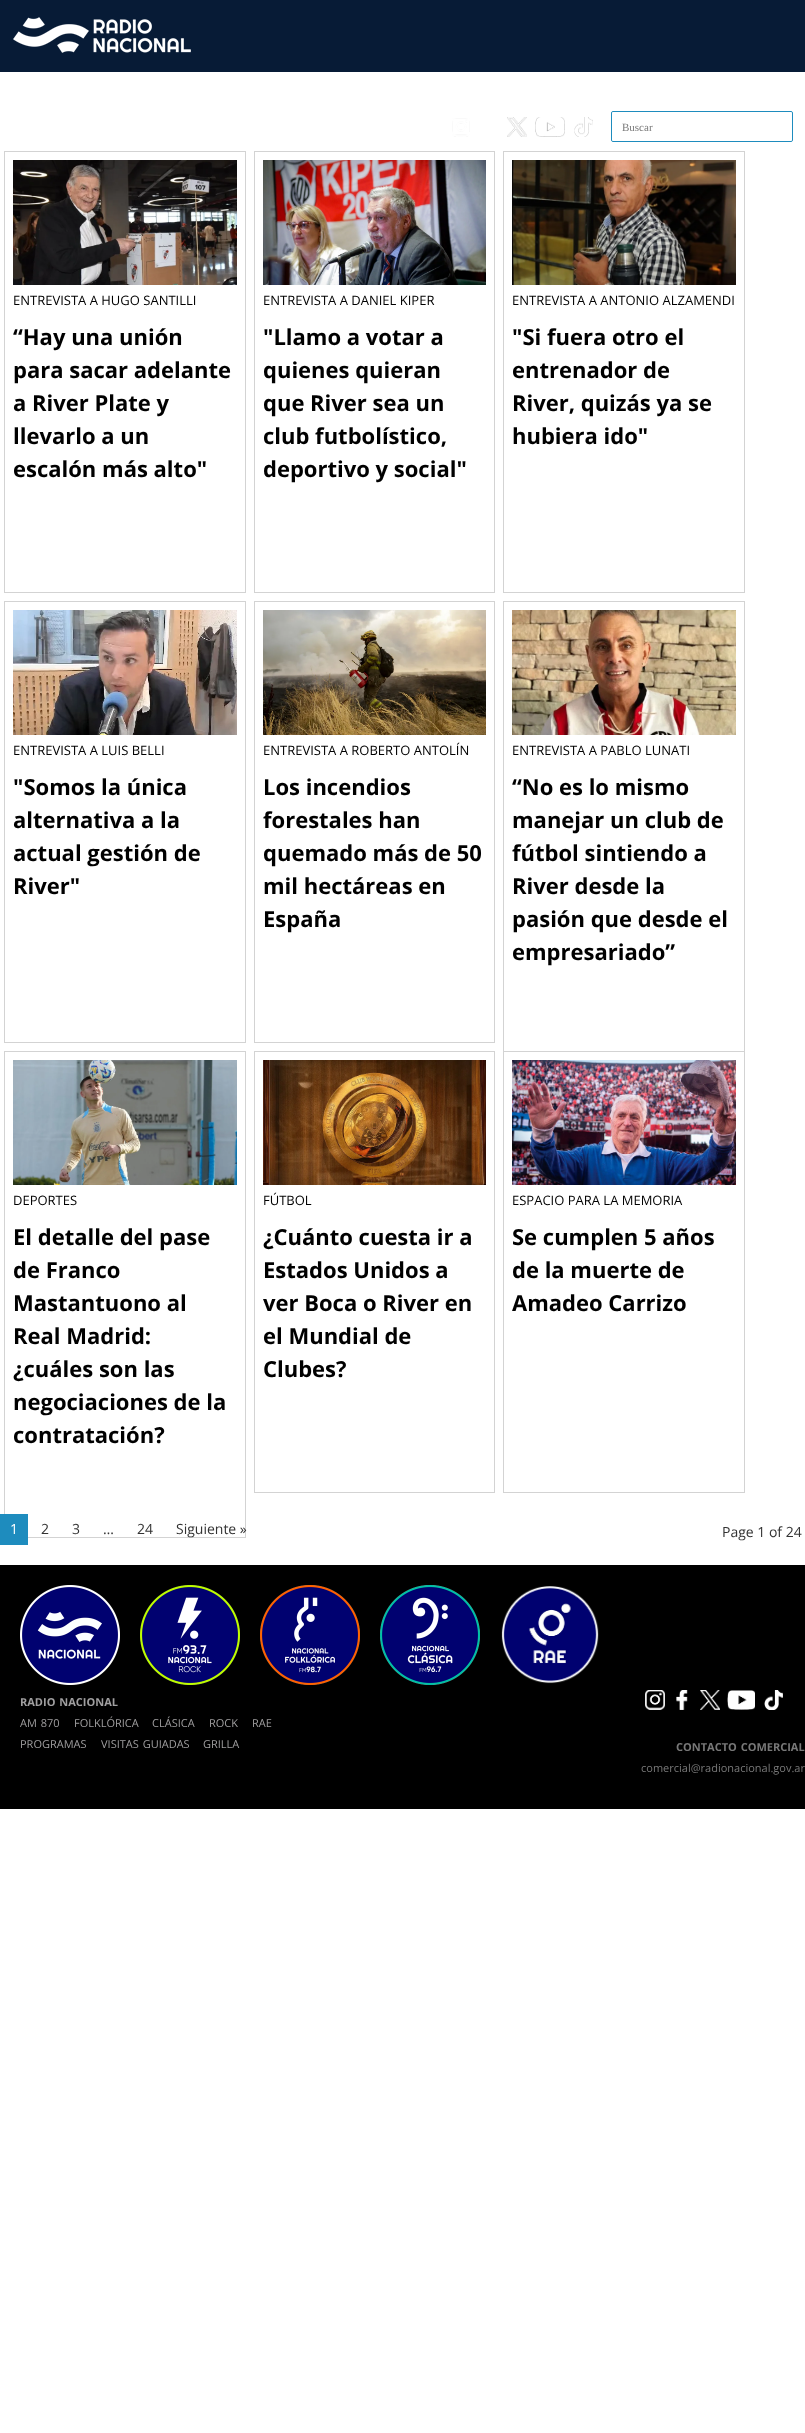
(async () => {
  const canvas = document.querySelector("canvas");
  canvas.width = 805;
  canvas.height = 2433;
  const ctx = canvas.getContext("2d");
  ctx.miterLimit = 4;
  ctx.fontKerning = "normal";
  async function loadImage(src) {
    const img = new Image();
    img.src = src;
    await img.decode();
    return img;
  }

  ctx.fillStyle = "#ffffff";
  ctx.fillRect(0, 0, 805, 2433);
  ctx.fillStyle = "#071b36";
  ctx.fillRect(0, 0, 805, 72);
  ctx.drawImage(await loadImage("img/1.png"), 13, 17, 178, 36);
  ctx.drawImage(await loadImage("img/2.png"), 452, 118, 18, 19);
  ctx.drawImage(await loadImage("img/3.png"), 507, 117, 20, 20);
  ctx.drawImage(await loadImage("img/4.png"), 535, 117, 30, 20);
  ctx.drawImage(await loadImage("img/5.png"), 574, 117, 19, 20);
  ctx.beginPath();
  ctx.roundRect(611.5, 111.5, 181, 30, 1.5);
  ctx.strokeStyle = "#1e8cbe";
  ctx.stroke();
  ctx.save();
  ctx.beginPath();
  ctx.roundRect(612, 112, 180, 29, 1);
  ctx.clip();
  ctx.fillStyle = "#ffffff";
  ctx.beginPath();
  ctx.roundRect(612, 112, 180, 29, 2);
  ctx.fill();
  ctx.restore();
  ctx.strokeStyle = "#d3d3d3";
  ctx.strokeRect(4.5, 151.5, 241, 441);
  ctx.drawImage(await loadImage("img/6.png"), 13, 160, 224, 125);
  ctx.strokeRect(254.5, 151.5, 240, 441);
  ctx.drawImage(await loadImage("img/7.png"), 263, 160, 223, 125);
  ctx.strokeRect(503.5, 151.5, 241, 441);
  ctx.drawImage(await loadImage("img/8.png"), 512, 160, 224, 125);
  ctx.strokeRect(4.5, 601.5, 241, 441);
  ctx.drawImage(await loadImage("img/9.png"), 13, 610, 224, 125);
  ctx.strokeRect(254.5, 601.5, 240, 441);
  ctx.drawImage(await loadImage("img/10.png"), 263, 610, 223, 125);
  ctx.strokeRect(503.5, 601.5, 241, 453);
  ctx.drawImage(await loadImage("img/11.png"), 512, 610, 224, 125);
  ctx.strokeRect(4.5, 1051.5, 241, 486);
  ctx.drawImage(await loadImage("img/12.png"), 13, 1060, 224, 125);
  ctx.strokeRect(254.5, 1051.5, 240, 441);
  ctx.drawImage(await loadImage("img/13.png"), 263, 1060, 223, 125);
  ctx.fillStyle = "#ffffff";
  ctx.fillRect(504, 1054, 240, 1);
  ctx.strokeRect(503.5, 1051.5, 241, 441);
  ctx.drawImage(await loadImage("img/14.png"), 512, 1060, 224, 125);
  ctx.fillStyle = "#1e8cbe";
  ctx.fillRect(0, 1514, 28, 31);
  ctx.fillStyle = "#000000";
  ctx.fillRect(0, 1565, 805, 244);
  ctx.drawImage(await loadImage("img/15.png"), 20, 1585, 100, 100);
  ctx.drawImage(await loadImage("img/16.png"), 140, 1585, 100, 100);
  ctx.drawImage(await loadImage("img/17.png"), 260, 1585, 100, 100);
  ctx.drawImage(await loadImage("img/18.png"), 380, 1585, 100, 100);
  ctx.drawImage(await loadImage("img/19.png"), 501, 1586, 98, 98);
  ctx.drawImage(await loadImage("img/20.png"), 645, 1690, 20, 20);
  ctx.drawImage(await loadImage("img/21.png"), 676, 1690, 12, 20);
  ctx.drawImage(await loadImage("img/22.png"), 700, 1690, 20, 20);
  ctx.drawImage(await loadImage("img/23.png"), 727, 1690, 28, 20);
  ctx.drawImage(await loadImage("img/24.png"), 764, 1690, 19, 20);
  ctx.font = "11px Liberation Serif";
  ctx.fillStyle = "#787878";
  ctx.fillText("Buscar", 622, 131);
  ctx.font = "13px Open Sans";
  ctx.fillStyle = "#000000";
  ctx.fillText("ENTREVISTA A HUGO SANTILLI", 13, 305);
  ctx.font = "bold 22px Open Sans";
  for (const [text, x, y] of [
    ["“Hay una unión", 13, 345],
    ["para sacar adelante", 13, 378],
    ["a River Plate y", 13, 411],
    ["llevarlo a un", 13, 444],
    ["escalón más alto\"", 13, 477],
  ]) {
    ctx.fillText(text, x, y);
  }
  ctx.font = "13px Open Sans";
  ctx.fillText("ENTREVISTA A DANIEL KIPER", 263, 305);
  ctx.font = "bold 22px Open Sans";
  for (const [text, x, y] of [
    ["\"Llamo a votar a", 263, 345],
    ["quienes quieran", 263, 378],
    ["que River sea un", 263, 411],
    ["club futbolístico,", 263, 444],
    ["deportivo y social\"", 263, 477],
  ]) {
    ctx.fillText(text, x, y);
  }
  ctx.font = "13px Open Sans";
  ctx.fillText("ENTREVISTA A ANTONIO ALZAMENDI", 512, 305);
  ctx.font = "bold 22px Open Sans";
  for (const [text, x, y] of [
    ["\"Si fuera otro el", 512, 345],
    ["entrenador de", 512, 378],
    ["River, quizás ya se", 512, 411],
    ["hubiera ido\"", 512, 444],
  ]) {
    ctx.fillText(text, x, y);
  }
  ctx.font = "13px Open Sans";
  ctx.fillText("ENTREVISTA A LUIS BELLI", 13, 755);
  ctx.font = "bold 22px Open Sans";
  for (const [text, x, y] of [
    ["\"Somos la única", 13, 795],
    ["alternativa a la", 13, 828],
    ["actual gestión de", 13, 861],
    ["River\"", 13, 894],
  ]) {
    ctx.fillText(text, x, y);
  }
  ctx.font = "13px Open Sans";
  ctx.fillText("ENTREVISTA A ROBERTO ANTOLÍN", 263, 755);
  ctx.font = "bold 22px Open Sans";
  for (const [text, x, y] of [
    ["Los incendios", 263, 795],
    ["forestales han", 263, 828],
    ["quemado más de 50", 263, 861],
    ["mil hectáreas en", 263, 894],
    ["España", 263, 927],
  ]) {
    ctx.fillText(text, x, y);
  }
  ctx.font = "13px Open Sans";
  ctx.fillText("ENTREVISTA A PABLO LUNATI", 512, 755);
  ctx.font = "bold 22px Open Sans";
  for (const [text, x, y] of [
    ["“No es lo mismo", 512, 795],
    ["manejar un club de", 512, 828],
    ["fútbol sintiendo a", 512, 861],
    ["River desde la", 512, 894],
    ["pasión que desde el", 512, 927],
    ["empresariado”", 512, 960],
  ]) {
    ctx.fillText(text, x, y);
  }
  ctx.font = "13px Open Sans";
  ctx.fillText("DEPORTES", 13, 1205);
  ctx.font = "bold 22px Open Sans";
  for (const [text, x, y] of [
    ["El detalle del pase", 13, 1245],
    ["de Franco", 13, 1278],
    ["Mastantuono al", 13, 1311],
    ["Real Madrid:", 13, 1344],
    ["¿cuáles son las", 13, 1377],
    ["negociaciones de la", 13, 1410],
    ["contratación?", 13, 1443],
  ]) {
    ctx.fillText(text, x, y);
  }
  ctx.font = "13px Open Sans";
  ctx.fillText("FÚTBOL", 263, 1205);
  ctx.font = "bold 22px Open Sans";
  for (const [text, x, y] of [
    ["¿Cuánto cuesta ir a", 263, 1245],
    ["Estados Unidos a", 263, 1278],
    ["ver Boca o River en", 263, 1311],
    ["el Mundial de", 263, 1344],
    ["Clubes?", 263, 1377],
  ]) {
    ctx.fillText(text, x, y);
  }
  ctx.font = "13px Open Sans";
  ctx.fillText("ESPACIO PARA LA MEMORIA", 512, 1205);
  ctx.font = "bold 22px Open Sans";
  for (const [text, x, y] of [
    ["Se cumplen 5 años", 512, 1245],
    ["de la muerte de", 512, 1278],
    ["Amadeo Carrizo", 512, 1311],
  ]) {
    ctx.fillText(text, x, y);
  }
  ctx.font = "14px Open Sans";
  ctx.fillStyle = "#ffffff";
  ctx.fillText("1", 10, 1534);
  ctx.fillStyle = "#333333";
  for (const [text, x, y] of [
    ["2", 41, 1534],
    ["3", 72, 1534],
    ["…", 103, 1534],
    ["24", 137, 1534],
    ["Siguiente »", 176, 1534],
    ["Page 1 of 24", 722, 1537],
  ]) {
    ctx.fillText(text, x, y);
  }
  ctx.wordSpacing = "1px";
  ctx.font = "bold 11px Open Sans";
  ctx.fillStyle = "#a09fa0";
  ctx.fillText("RADIO NACIONAL", 20, 1706);
  ctx.font = "11px Open Sans";
  ctx.fillText("AM 870", 20, 1727);
  ctx.wordSpacing = "0px";
  for (const [text, x, y] of [
    ["FOLKLÓRICA", 74, 1727],
    ["CLÁSICA", 152, 1727],
    ["ROCK", 209, 1727],
    ["RAE", 252, 1727],
    ["PROGRAMAS", 20, 1748],
  ]) {
    ctx.fillText(text, x, y);
  }
  ctx.wordSpacing = "1px";
  ctx.fillText("VISITAS GUIADAS", 101, 1748);
  ctx.wordSpacing = "0px";
  ctx.fillText("GRILLA", 203, 1748);
  ctx.wordSpacing = "1px";
  ctx.font = "bold 11px Open Sans";
  ctx.fillStyle = "#787878";
  ctx.fillText("CONTACTO COMERCIAL", 676, 1751);
  ctx.wordSpacing = "0px";
  ctx.font = "11px Open Sans";
  ctx.fillText("comercial@radionacional.gov.ar", 641, 1772);
})();
